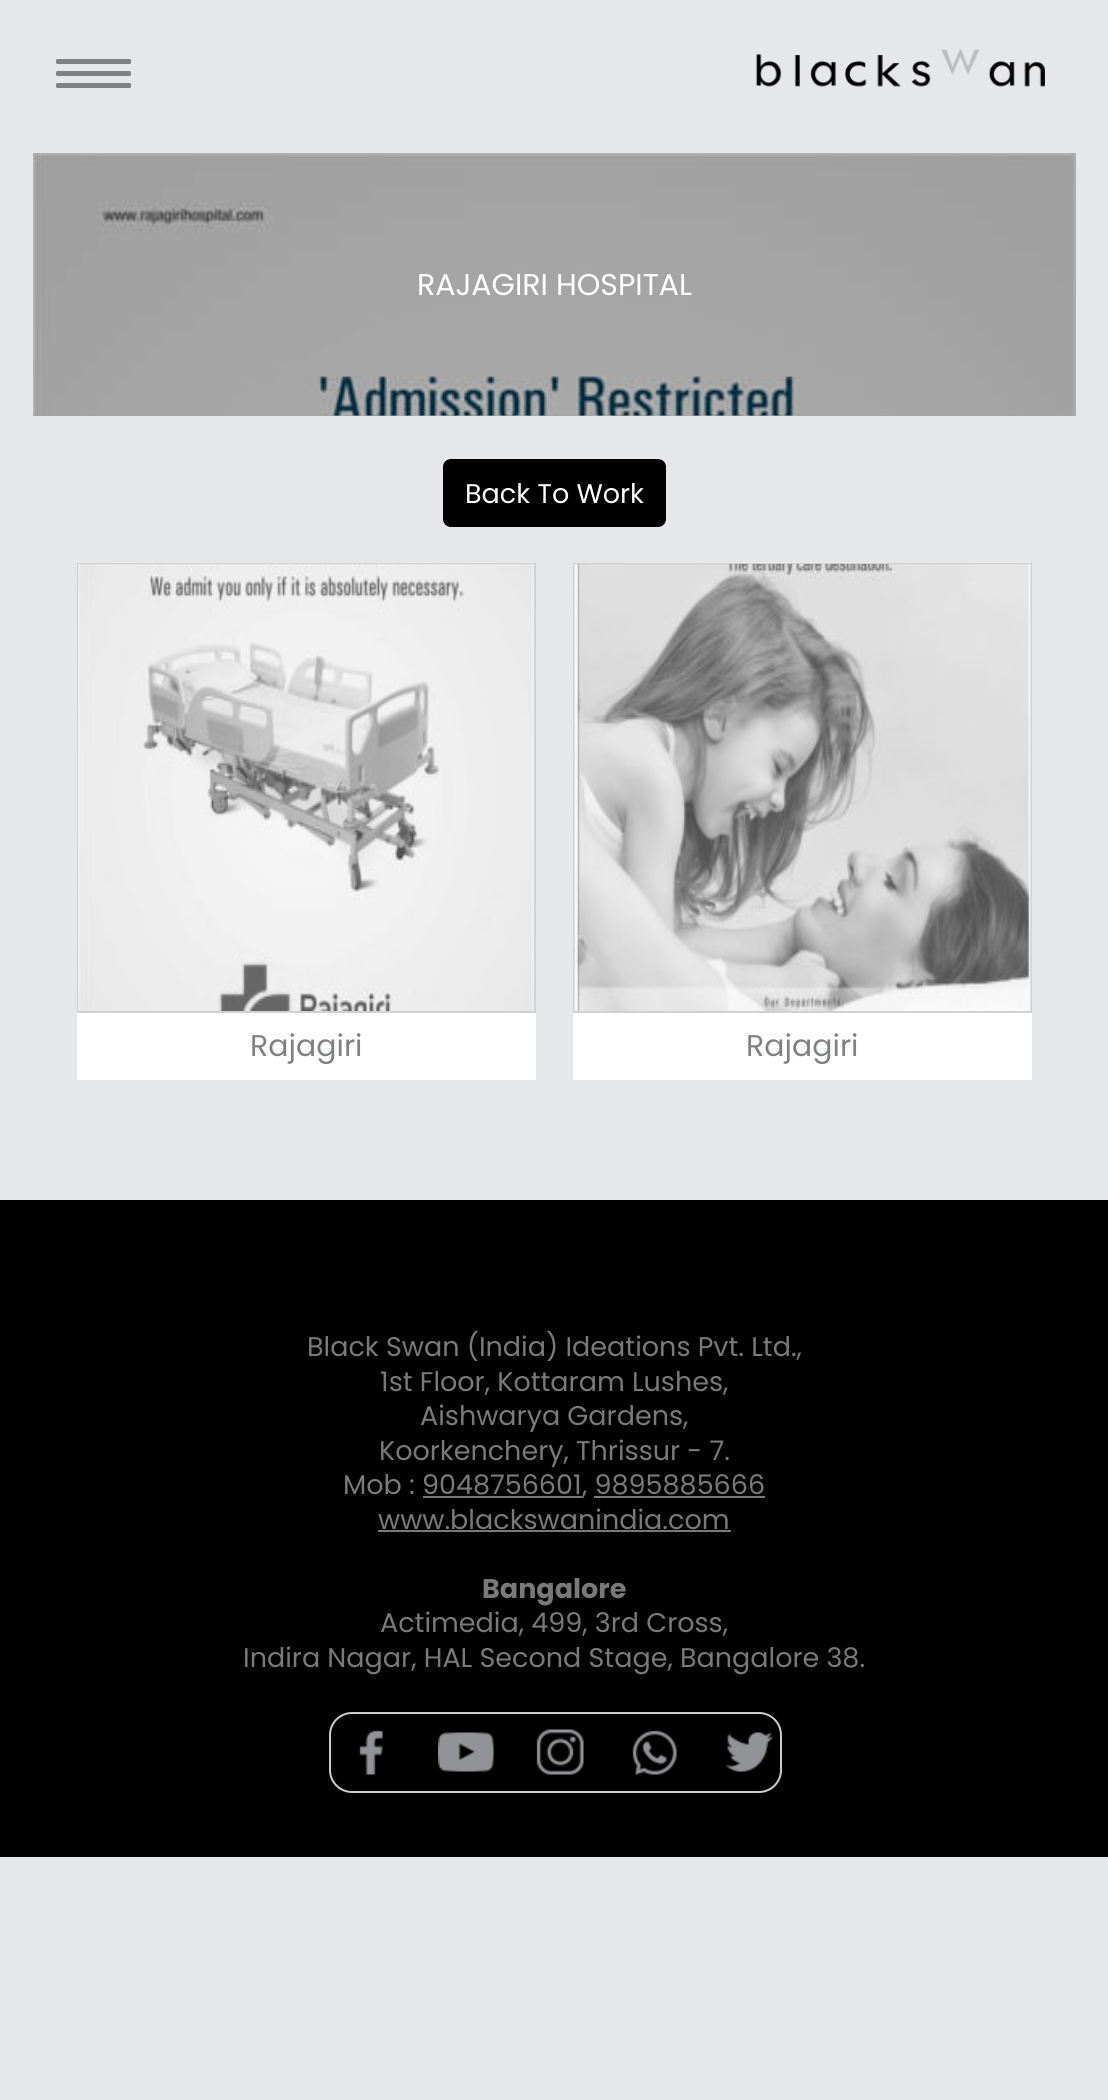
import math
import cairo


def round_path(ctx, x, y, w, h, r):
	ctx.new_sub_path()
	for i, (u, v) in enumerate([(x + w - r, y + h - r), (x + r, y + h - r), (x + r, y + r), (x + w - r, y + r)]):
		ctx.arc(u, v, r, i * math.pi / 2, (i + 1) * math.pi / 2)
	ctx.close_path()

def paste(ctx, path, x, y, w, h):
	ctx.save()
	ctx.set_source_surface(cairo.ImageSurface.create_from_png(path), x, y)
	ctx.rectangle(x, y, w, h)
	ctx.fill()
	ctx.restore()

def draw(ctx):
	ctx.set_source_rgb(0.902, 0.906, 0.914)
	ctx.paint()
	ctx.set_source_rgb(0.631, 0.635, 0.639)
	ctx.rectangle(33, 153, 1043, 263)
	ctx.fill()
	ctx.set_source_rgb(0.502, 0.506, 0.522)
	round_path(ctx, 56, 59, 75, 5, 1.5)
	ctx.fill()
	round_path(ctx, 56, 71, 75, 5, 1.5)
	ctx.fill()
	round_path(ctx, 56, 83, 75, 5, 1.5)
	ctx.fill()
	paste(ctx, 'media/1.png', 756, 49, 289, 38)
	paste(ctx, 'media/2.png', 33, 153, 1043, 263)
	ctx.select_font_face('Poppins')
	ctx.set_font_size(30)
	ctx.set_source_rgb(1, 1, 1)
	ctx.move_to(417, 295)
	ctx.show_text('RAJAGIRI HOSPITAL')
	ctx.set_source_rgb(0, 0, 0)
	round_path(ctx, 443, 459, 223, 68, 8)
	ctx.fill()
	ctx.set_font_size(27)
	ctx.set_source_rgb(1, 1, 1)
	ctx.move_to(465, 503)
	ctx.show_text('Back To Work')
	ctx.rectangle(78, 564, 457, 448)
	ctx.set_source_rgb(0.82, 0.82, 0.824)
	ctx.stroke()
	paste(ctx, 'media/3.png', 78, 564, 456, 447)
	ctx.set_source_rgb(1, 1, 1)
	ctx.rectangle(77, 1013, 459, 67)
	ctx.fill()
	ctx.set_font_size(30)
	ctx.set_source_rgb(0.502, 0.506, 0.522)
	ctx.move_to(250, 1056)
	ctx.show_text('Rajagiri')
	ctx.rectangle(574, 564, 457, 448)
	ctx.set_source_rgb(0.82, 0.82, 0.824)
	ctx.stroke()
	paste(ctx, 'media/4.png', 574, 564, 457, 447)
	ctx.set_source_rgb(1, 1, 1)
	ctx.rectangle(573, 1013, 459, 67)
	ctx.fill()
	ctx.set_source_rgb(0.502, 0.506, 0.522)
	ctx.move_to(746, 1056)
	ctx.show_text('Rajagiri')
	ctx.set_source_rgb(0, 0, 0)
	ctx.rectangle(0, 1200, 1108, 657)
	ctx.fill()
	ctx.set_font_size(27)
	ctx.set_source_rgb(0.475, 0.475, 0.475)
	for x, y, s in [
		(307, 1356, 'Black Swan (India) Ideations Pvt. Ltd.,'),
		(380, 1391, '1st Floor, Kottaram Lushes,'),
		(420, 1425, 'Aishwarya Gardens,'),
		(379, 1460, 'Koorkenchery, Thrissur - 7.'),
		(343, 1494, 'Mob : 9048756601'),
	]:
		ctx.move_to(x, y)
		ctx.show_text(s)
	ctx.rectangle(423, 1496, 159, 2)
	ctx.fill()
	ctx.move_to(582, 1494)
	ctx.show_text(', 9895885666')
	ctx.rectangle(594, 1496, 171, 2)
	ctx.fill()
	ctx.move_to(378, 1529)
	ctx.show_text('www.blackswanindia.com')
	ctx.rectangle(378, 1530, 353, 2)
	ctx.fill()
	ctx.select_font_face('Poppins', cairo.FONT_SLANT_NORMAL, cairo.FONT_WEIGHT_BOLD)
	ctx.move_to(482, 1598)
	ctx.show_text('Bangalore')
	ctx.select_font_face('Poppins')
	ctx.move_to(380, 1632)
	ctx.show_text('Actimedia, 499, 3rd Cross,')
	ctx.move_to(243, 1667)
	ctx.show_text('Indira Nagar, HAL Second Stage, Bangalore 38.')
	round_path(ctx, 330, 1713, 451, 79, 22)
	ctx.set_source_rgb(0.8, 0.8, 0.8)
	ctx.stroke()
	paste(ctx, 'media/5.png', 359, 1730, 24, 45)
	paste(ctx, 'media/6.png', 438, 1732, 56, 40)
	paste(ctx, 'media/7.png', 536, 1729, 48, 46)
	paste(ctx, 'media/8.png', 632, 1730, 45, 45)
	paste(ctx, 'media/9.png', 725, 1732, 48, 40)


surface = cairo.ImageSurface(cairo.FORMAT_RGB24, 1108, 2100)
ctx = cairo.Context(surface)
options = cairo.FontOptions()
options.set_hint_metrics(cairo.HINT_METRICS_OFF)
options.set_hint_style(cairo.HINT_STYLE_NONE)
ctx.set_font_options(options)
ctx.set_miter_limit(4)
draw(ctx)
surface.write_to_png('image.png')
